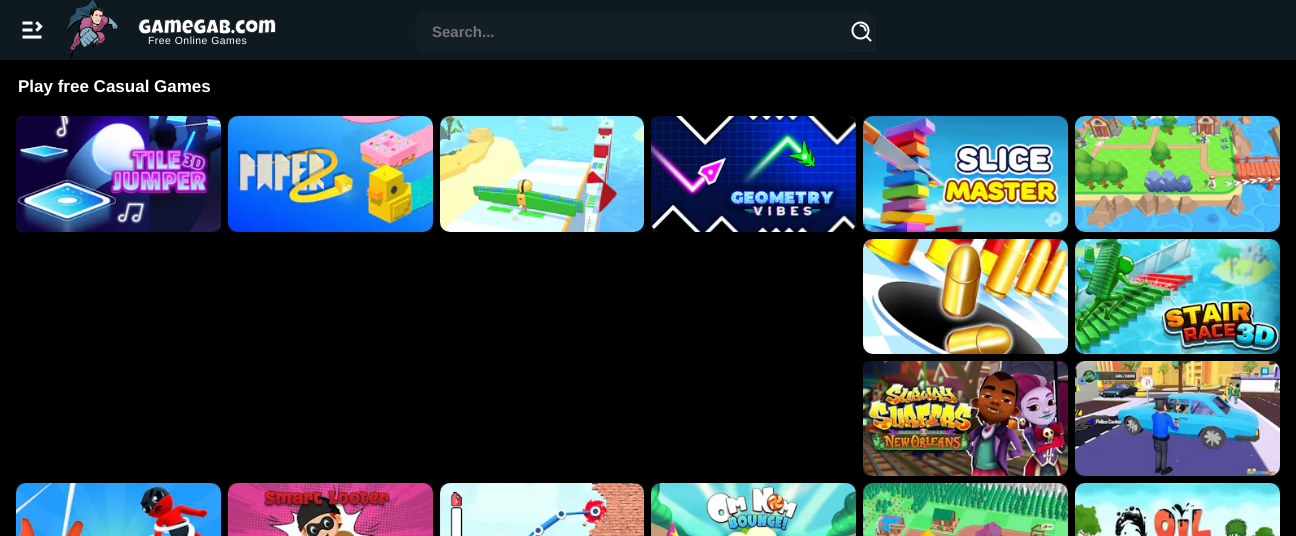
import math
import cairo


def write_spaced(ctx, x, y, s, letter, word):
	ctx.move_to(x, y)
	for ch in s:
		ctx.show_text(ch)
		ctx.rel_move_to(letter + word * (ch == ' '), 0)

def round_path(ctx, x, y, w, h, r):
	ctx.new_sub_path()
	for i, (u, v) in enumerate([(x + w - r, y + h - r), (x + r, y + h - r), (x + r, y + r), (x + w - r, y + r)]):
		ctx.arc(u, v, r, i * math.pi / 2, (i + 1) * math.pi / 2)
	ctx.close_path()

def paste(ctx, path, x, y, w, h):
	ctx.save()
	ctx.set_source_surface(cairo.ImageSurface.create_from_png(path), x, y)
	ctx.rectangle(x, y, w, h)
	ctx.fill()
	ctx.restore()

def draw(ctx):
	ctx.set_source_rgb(0, 0, 0)
	ctx.paint()
	ctx.set_source_rgb(0.059, 0.102, 0.125)
	ctx.rectangle(0, 0, 1296, 60)
	ctx.fill()
	ctx.set_source_rgb(0.075, 0.122, 0.145)
	round_path(ctx, 415, 13, 460, 38, 11)
	ctx.fill()
	ctx.select_font_face('Liberation Sans', cairo.FONT_SLANT_NORMAL, cairo.FONT_WEIGHT_BOLD)
	ctx.set_font_size(15)
	ctx.set_source_rgb(0.459, 0.459, 0.459)
	ctx.move_to(432, 37)
	ctx.show_text('Search...')
	ctx.set_source_rgb(0.075, 0.122, 0.145)
	ctx.rectangle(848, 18, 28, 34)
	ctx.fill()
	paste(ctx, 'media/1.png', 851, 21, 21, 21)
	paste(ctx, 'media/2.png', 22, 21, 21, 18)
	paste(ctx, 'media/3.png', 67, 0, 51, 58)
	paste(ctx, 'media/4.png', 138, 19, 138, 15)
	ctx.select_font_face('Liberation Sans')
	ctx.set_font_size(10.4)
	ctx.set_source_rgb(1, 1, 1)
	write_spaced(ctx, 148, 44, 'Free Online Games', 0.5, 0)
	ctx.select_font_face('Liberation Sans', cairo.FONT_SLANT_NORMAL, cairo.FONT_WEIGHT_BOLD)
	ctx.set_font_size(17)
	ctx.move_to(18, 92)
	ctx.show_text('Play free Casual Games')
	ctx.set_source_rgb(0.071, 0.071, 0.071)
	round_path(ctx, 16, 116, 205, 116, 6)
	ctx.fill()
	paste(ctx, 'media/5.png', 16, 116, 205, 116)
	round_path(ctx, 228, 116, 205, 116, 6)
	ctx.fill()
	paste(ctx, 'media/6.png', 228, 116, 205, 116)
	round_path(ctx, 440, 116, 204, 116, 6)
	ctx.fill()
	paste(ctx, 'media/7.png', 440, 116, 204, 116)
	round_path(ctx, 651, 116, 205, 116, 6)
	ctx.fill()
	paste(ctx, 'media/8.png', 651, 116, 205, 116)
	round_path(ctx, 863, 116, 205, 116, 6)
	ctx.fill()
	paste(ctx, 'media/9.png', 863, 116, 205, 116)
	round_path(ctx, 1075, 116, 205, 116, 6)
	ctx.fill()
	paste(ctx, 'media/10.png', 1075, 116, 205, 116)
	round_path(ctx, 863, 239, 205, 115, 6)
	ctx.fill()
	paste(ctx, 'media/11.png', 863, 239, 205, 115)
	round_path(ctx, 1075, 239, 205, 115, 6)
	ctx.fill()
	paste(ctx, 'media/12.png', 1075, 239, 205, 115)
	round_path(ctx, 863, 361, 205, 115, 6)
	ctx.fill()
	paste(ctx, 'media/13.png', 863, 361, 205, 115)
	round_path(ctx, 1075, 361, 205, 115, 6)
	ctx.fill()
	paste(ctx, 'media/14.png', 1075, 361, 205, 115)
	round_path(ctx, 16, 483, 205, 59, 6)
	ctx.fill()
	paste(ctx, 'media/15.png', 16, 483, 205, 53)
	round_path(ctx, 228, 483, 205, 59, 6)
	ctx.fill()
	paste(ctx, 'media/16.png', 228, 483, 205, 53)
	round_path(ctx, 440, 483, 204, 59, 6)
	ctx.fill()
	paste(ctx, 'media/17.png', 440, 483, 204, 53)
	round_path(ctx, 651, 483, 205, 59, 6)
	ctx.fill()
	paste(ctx, 'media/18.png', 651, 483, 205, 53)
	round_path(ctx, 863, 483, 205, 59, 6)
	ctx.fill()
	paste(ctx, 'media/19.png', 863, 483, 205, 53)
	round_path(ctx, 1075, 483, 205, 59, 6)
	ctx.fill()
	paste(ctx, 'media/20.png', 1075, 483, 205, 53)


surface = cairo.ImageSurface(cairo.FORMAT_RGB24, 1296, 536)
ctx = cairo.Context(surface)
options = cairo.FontOptions()
options.set_hint_metrics(cairo.HINT_METRICS_OFF)
options.set_hint_style(cairo.HINT_STYLE_NONE)
ctx.set_font_options(options)
ctx.set_miter_limit(4)
draw(ctx)
surface.write_to_png('image.png')
